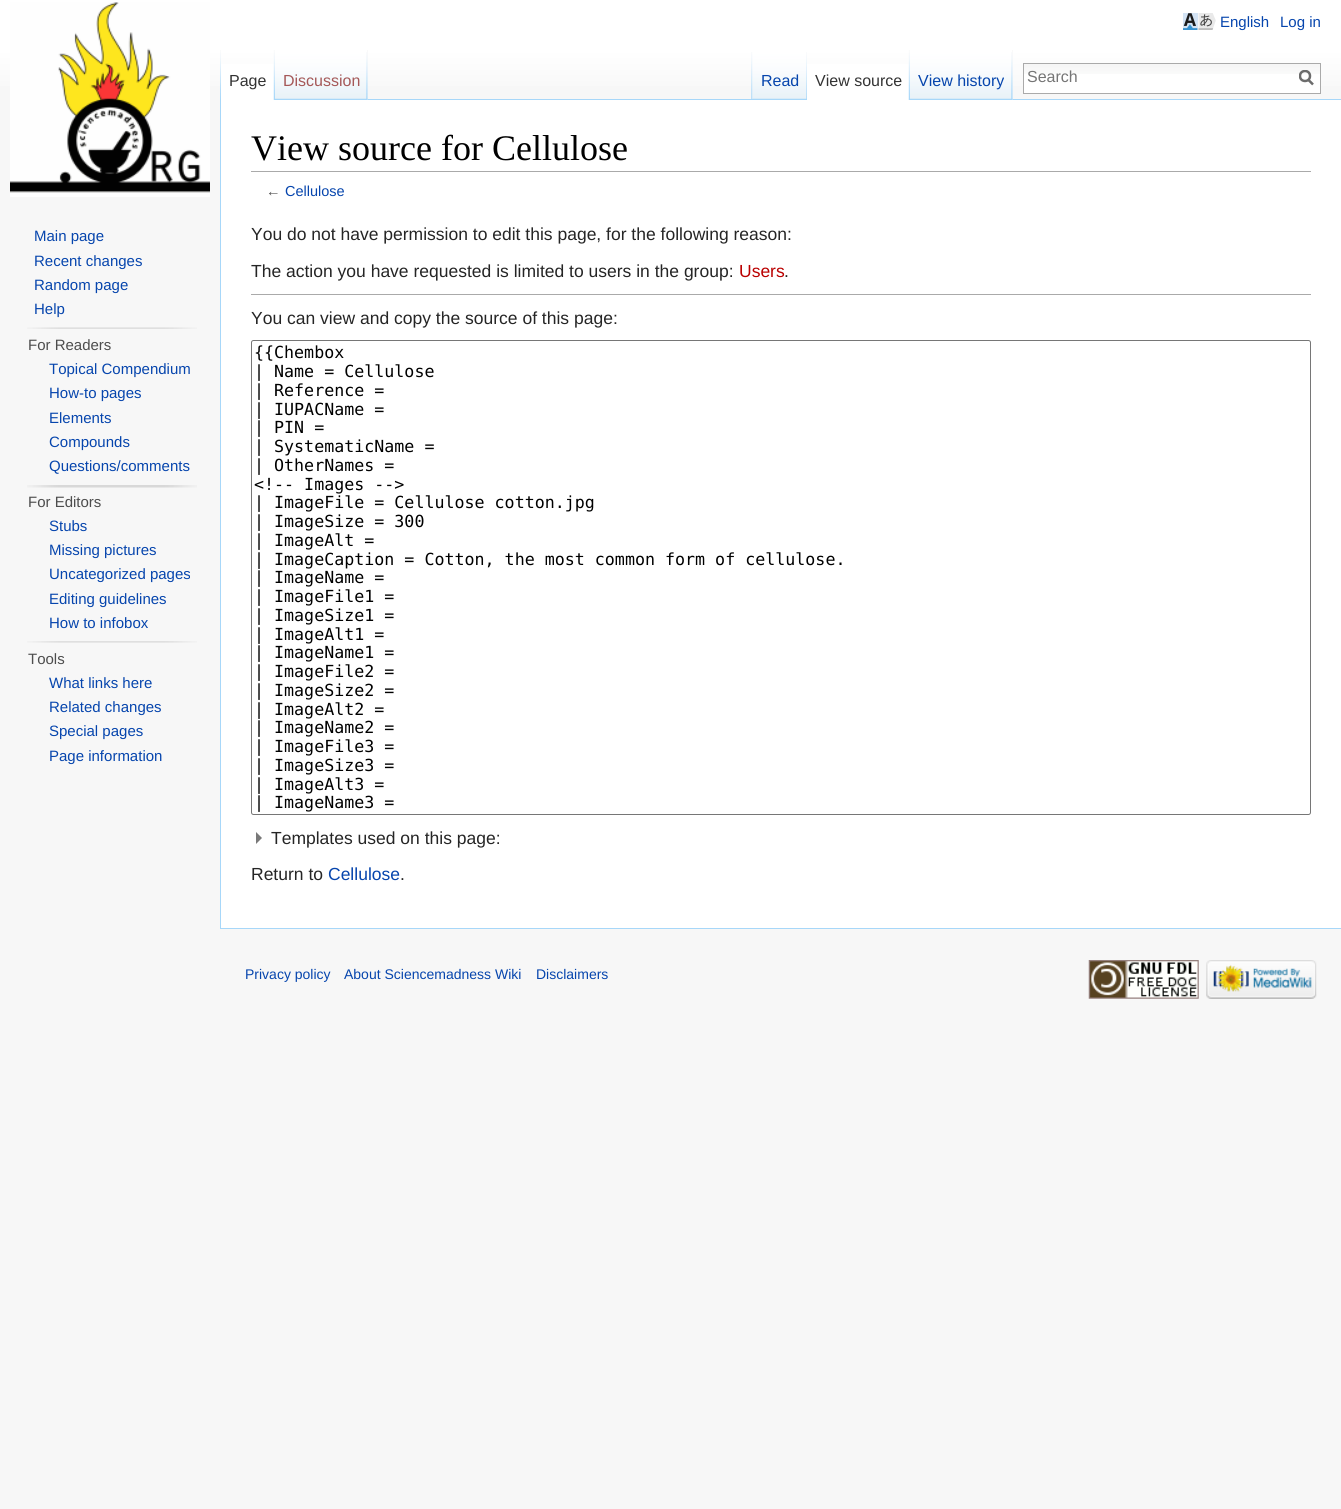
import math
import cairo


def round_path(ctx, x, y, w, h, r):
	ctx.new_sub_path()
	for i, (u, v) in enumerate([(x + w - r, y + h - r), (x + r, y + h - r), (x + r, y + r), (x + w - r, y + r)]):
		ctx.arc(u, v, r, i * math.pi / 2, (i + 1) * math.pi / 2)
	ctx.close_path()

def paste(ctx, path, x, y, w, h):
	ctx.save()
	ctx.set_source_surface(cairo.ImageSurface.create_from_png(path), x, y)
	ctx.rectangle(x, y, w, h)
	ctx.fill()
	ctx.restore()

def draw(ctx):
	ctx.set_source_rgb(0.965, 0.965, 0.965)
	ctx.paint()
	gradient = cairo.LinearGradient(671, 0, 671, 100)
	gradient.add_color_stop_rgba(0.5, 1, 1, 1, 1)
	gradient.add_color_stop_rgba(1, 0.965, 0.965, 0.965, 1)
	ctx.set_source(gradient)
	ctx.rectangle(0, 0, 1341, 86)
	ctx.fill()
	paste(ctx, 'media/1.png', 1183, 13, 33, 17)
	ctx.select_font_face('Liberation Sans')
	ctx.set_font_size(15)
	ctx.set_source_rgb(0.024, 0.271, 0.678)
	ctx.move_to(1220, 27)
	ctx.show_text('English')
	ctx.move_to(1280, 27)
	ctx.show_text('Log in')
	paste(ctx, 'media/2.png', 220, 50, 1, 49)
	ctx.set_source_rgb(1, 1, 1)
	ctx.rectangle(221, 64, 53, 36)
	ctx.fill()
	paste(ctx, 'media/3.png', 273, 50, 2, 50)
	ctx.set_font_size(16)
	ctx.set_source_rgb(0.2, 0.2, 0.2)
	ctx.move_to(229, 86)
	ctx.show_text('Page')
	ctx.set_source_rgb(0.953, 0.953, 0.953)
	ctx.rectangle(367, 50, 1, 50)
	ctx.fill()
	paste(ctx, 'media/4.png', 275, 50, 93, 50)
	paste(ctx, 'media/5.png', 366, 52, 2, 48)
	ctx.set_source_rgb(0.647, 0.345, 0.345)
	ctx.move_to(283, 86)
	ctx.show_text('Discussion')
	paste(ctx, 'media/6.png', 751, 52, 2, 47)
	ctx.set_source_rgb(0.655, 0.843, 0.976)
	ctx.rectangle(368, 99, 973, 1)
	ctx.fill()
	paste(ctx, 'media/7.png', 752, 50, 55, 50)
	paste(ctx, 'media/8.png', 806, 52, 1, 48)
	ctx.set_source_rgb(0.024, 0.271, 0.678)
	ctx.move_to(761, 86)
	ctx.show_text('Read')
	ctx.set_source_rgb(1, 1, 1)
	ctx.rectangle(807, 64, 102, 36)
	ctx.fill()
	paste(ctx, 'media/3.png', 908, 50, 2, 50)
	ctx.set_source_rgb(0.2, 0.2, 0.2)
	ctx.move_to(815, 86)
	ctx.show_text('View source')
	ctx.set_source_rgb(0.953, 0.953, 0.953)
	ctx.rectangle(1012, 50, 1, 50)
	ctx.fill()
	paste(ctx, 'media/9.png', 910, 50, 103, 50)
	paste(ctx, 'media/5.png', 1011, 52, 2, 48)
	ctx.set_source_rgb(0.024, 0.271, 0.678)
	ctx.move_to(918, 86)
	ctx.show_text('View history')
	ctx.set_source_rgb(1, 1, 1)
	ctx.rectangle(1024, 74, 296, 19)
	ctx.fill()
	paste(ctx, 'media/10.png', 1024, 64, 296, 10)
	ctx.rectangle(1023.5, 63.5, 297, 30)
	ctx.set_source_rgb(0.667, 0.667, 0.667)
	ctx.set_line_width(1)
	ctx.stroke()
	ctx.set_source_rgb(0.459, 0.459, 0.459)
	ctx.move_to(1027, 82)
	ctx.show_text('Search')
	ctx.new_path()
	ctx.move_to(1313, 84.5)
	ctx.line_to(1308, 79.5)
	ctx.set_source_rgb(0.424, 0.424, 0.424)
	ctx.set_line_width(2.5)
	ctx.stroke()
	ctx.save()
	ctx.rectangle(1299, 70, 15, 16)
	ctx.clip()
	ctx.arc(1305, 76, 5, 0, 2 * math.pi)
	ctx.stroke()
	ctx.restore()
	paste(ctx, 'media/11.png', 10, 2, 200, 195)
	ctx.set_font_size(15)
	ctx.set_source_rgb(0.024, 0.271, 0.678)
	for x, y, s in [
		(34, 241, 'Main page'),
		(34, 266, 'Recent changes'),
		(34, 290, 'Random page'),
		(34, 314, 'Help'),
	]:
		ctx.move_to(x, y)
		ctx.show_text(s)
	paste(ctx, 'media/12.png', 27, 327, 170, 2)
	ctx.set_source_rgb(0.302, 0.302, 0.302)
	ctx.move_to(28, 350)
	ctx.show_text('For Readers')
	ctx.set_source_rgb(0.024, 0.271, 0.678)
	for x, y, s in [
		(49, 374, 'Topical Compendium'),
		(49, 398, 'How-to pages'),
		(49, 423, 'Elements'),
		(49, 447, 'Compounds'),
		(49, 471, 'Questions/comments'),
	]:
		ctx.move_to(x, y)
		ctx.show_text(s)
	paste(ctx, 'media/13.png', 27, 485, 170, 3)
	ctx.set_source_rgb(0.302, 0.302, 0.302)
	ctx.move_to(28, 507)
	ctx.show_text('For Editors')
	ctx.set_source_rgb(0.024, 0.271, 0.678)
	for x, y, s in [
		(49, 531, 'Stubs'),
		(49, 555, 'Missing pictures'),
		(49, 579, 'Uncategorized pages'),
		(49, 604, 'Editing guidelines'),
		(49, 628, 'How to infobox'),
	]:
		ctx.move_to(x, y)
		ctx.show_text(s)
	paste(ctx, 'media/14.png', 27, 641, 170, 2)
	ctx.set_source_rgb(0.302, 0.302, 0.302)
	ctx.move_to(28, 664)
	ctx.show_text('Tools')
	ctx.set_source_rgb(0.024, 0.271, 0.678)
	for x, y, s in [
		(49, 688, 'What links here'),
		(49, 712, 'Related changes'),
		(49, 736, 'Special pages'),
		(49, 761, 'Page information'),
	]:
		ctx.move_to(x, y)
		ctx.show_text(s)
	ctx.set_source_rgb(1, 1, 1)
	ctx.rectangle(221, 100, 1120, 828)
	ctx.fill()
	ctx.set_source_rgb(0.655, 0.843, 0.976)
	ctx.rectangle(220, 928, 1121, 1)
	ctx.rectangle(220, 99, 1, 830)
	ctx.fill()
	ctx.set_source_rgb(0.667, 0.667, 0.667)
	ctx.rectangle(251, 171, 1060, 1)
	ctx.fill()
	ctx.select_font_face('Liberation Serif')
	ctx.set_font_size(36)
	ctx.set_source_rgb(0, 0, 0)
	ctx.move_to(251, 160)
	ctx.show_text('View source for Cellulose')
	ctx.select_font_face('Liberation Sans')
	ctx.set_font_size(14.5)
	ctx.set_source_rgb(0.329, 0.329, 0.329)
	ctx.move_to(266, 196)
	ctx.show_text('←')
	ctx.set_source_rgb(0.024, 0.271, 0.678)
	ctx.move_to(285, 196)
	ctx.show_text('Cellulose')
	ctx.set_font_size(17.5)
	ctx.set_source_rgb(0.145, 0.145, 0.145)
	ctx.move_to(251, 240)
	ctx.show_text('You do not have permission to edit this page, for the following reason:')
	ctx.move_to(251, 277)
	ctx.show_text('The action you have requested is limited to users in the group:')
	ctx.set_source_rgb(0.729, 0, 0)
	ctx.move_to(739, 277)
	ctx.show_text('Users')
	ctx.set_source_rgb(0.145, 0.145, 0.145)
	ctx.move_to(784, 277)
	ctx.show_text('.')
	ctx.set_source_rgb(0.667, 0.667, 0.667)
	ctx.rectangle(251, 294, 1060, 1)
	ctx.fill()
	ctx.set_source_rgb(0.145, 0.145, 0.145)
	ctx.move_to(251, 324)
	ctx.show_text('You can view and copy the source of this page:')
	round_path(ctx, 251.5, 340.5, 1059, 474, 2)
	ctx.set_source_rgb(0.463, 0.463, 0.463)
	ctx.set_line_width(1)
	ctx.stroke()
	ctx.select_font_face('DejaVu Sans Mono')
	ctx.set_font_size(16.65)
	ctx.set_source_rgb(0, 0, 0)
	for x, y, s in [
		(254, 358, '{{Chembox'),
		(254, 377, '| Name = Cellulose'),
		(254, 396, '| Reference ='),
		(254, 415, '| IUPACName ='),
		(254, 433, '| PIN ='),
		(254, 452, '| SystematicName ='),
		(254, 471, '| OtherNames ='),
		(254, 490, '<!-- Images -->'),
		(254, 508, '| ImageFile = Cellulose cotton.jpg'),
		(254, 527, '| ImageSize = 300'),
		(254, 546, '| ImageAlt ='),
		(254, 565, '| ImageCaption = Cotton, the most common form of cellulose.'),
		(254, 583, '| ImageName ='),
		(254, 602, '| ImageFile1 ='),
		(254, 621, '| ImageSize1 ='),
		(254, 640, '| ImageAlt1 ='),
		(254, 658, '| ImageName1 ='),
		(254, 677, '| ImageFile2 ='),
		(254, 696, '| ImageSize2 ='),
		(254, 715, '| ImageAlt2 ='),
		(254, 733, '| ImageName2 ='),
		(254, 752, '| ImageFile3 ='),
		(254, 771, '| ImageSize3 ='),
		(254, 790, '| ImageAlt3 ='),
		(254, 808, '| ImageName3 ='),
	]:
		ctx.move_to(x, y)
		ctx.show_text(s)
	ctx.set_source_rgb(0.475, 0.475, 0.475)
	ctx.new_path()
	ctx.move_to(256, 832)
	ctx.line_to(256, 844)
	ctx.line_to(262, 838)
	ctx.close_path()
	ctx.fill()
	ctx.select_font_face('Liberation Sans')
	ctx.set_font_size(17.5)
	ctx.set_source_rgb(0.145, 0.145, 0.145)
	ctx.move_to(271, 844)
	ctx.show_text('Templates used on this page:')
	ctx.move_to(251, 880)
	ctx.show_text('Return to')
	ctx.set_source_rgb(0.024, 0.271, 0.678)
	ctx.move_to(328, 880)
	ctx.show_text('Cellulose')
	ctx.set_source_rgb(0.145, 0.145, 0.145)
	ctx.move_to(400, 880)
	ctx.show_text('.')
	ctx.set_font_size(14)
	ctx.set_source_rgb(0.024, 0.271, 0.678)
	for x, y, s in [
		(245, 979, 'Privacy policy'),
		(344, 979, 'About Sciencemadness Wiki'),
		(536, 979, 'Disclaimers'),
	]:
		ctx.move_to(x, y)
		ctx.show_text(s)
	paste(ctx, 'media/15.png', 1088, 960, 111, 39)
	paste(ctx, 'media/16.png', 1206, 960, 111, 39)


surface = cairo.ImageSurface(cairo.FORMAT_RGB24, 1341, 1509)
ctx = cairo.Context(surface)
options = cairo.FontOptions()
options.set_hint_metrics(cairo.HINT_METRICS_OFF)
options.set_hint_style(cairo.HINT_STYLE_NONE)
ctx.set_font_options(options)
ctx.set_miter_limit(4)
draw(ctx)
surface.write_to_png('image.png')
